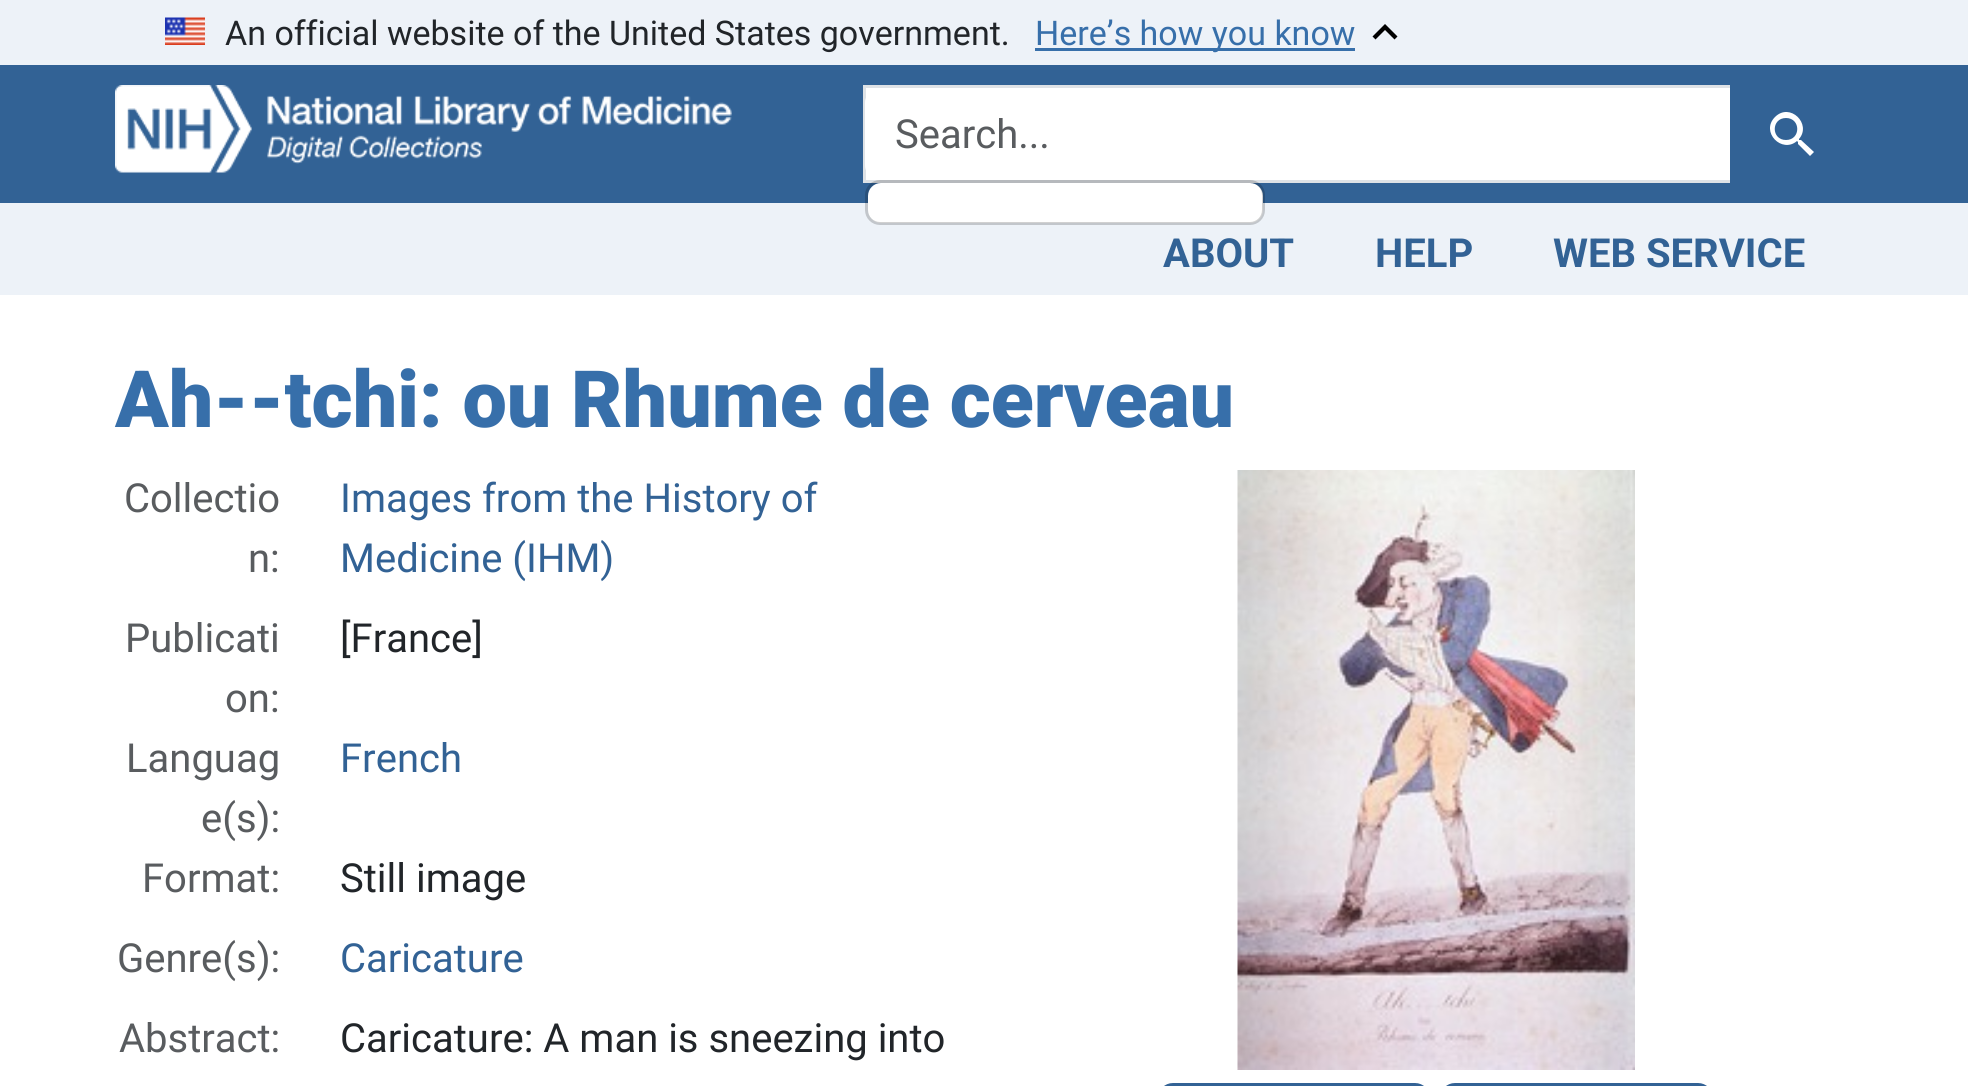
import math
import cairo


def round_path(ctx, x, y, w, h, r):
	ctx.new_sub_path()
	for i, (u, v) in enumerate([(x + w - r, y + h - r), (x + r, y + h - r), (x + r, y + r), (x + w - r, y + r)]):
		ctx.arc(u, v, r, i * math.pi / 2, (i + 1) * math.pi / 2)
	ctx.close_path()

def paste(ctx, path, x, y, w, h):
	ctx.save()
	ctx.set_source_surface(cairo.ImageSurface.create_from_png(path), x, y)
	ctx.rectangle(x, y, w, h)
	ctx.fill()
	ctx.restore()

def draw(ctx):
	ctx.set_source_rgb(1, 1, 1)
	ctx.paint()
	ctx.set_source_rgb(0.929, 0.949, 0.969)
	ctx.rectangle(0, 0, 1968, 65)
	ctx.fill()
	paste(ctx, 'media/1.png', 165, 17, 40, 28)
	ctx.select_font_face('Roboto')
	ctx.set_font_size(34)
	ctx.set_source_rgb(0.129, 0.145, 0.161)
	ctx.move_to(225, 45)
	ctx.show_text('An official website of the United States government.')
	ctx.set_source_rgb(0.216, 0.435, 0.667)
	ctx.rectangle(1035, 48, 320, 3)
	ctx.fill()
	ctx.move_to(1035, 45)
	ctx.show_text('Here’s how you know')
	ctx.set_source_rgb(0, 0, 0)
	ctx.new_path()
	ctx.move_to(1385, 24)
	ctx.line_to(1372.5, 36.5)
	ctx.line_to(1375.5, 39.5)
	ctx.line_to(1385, 30)
	ctx.line_to(1394.5, 39.5)
	ctx.line_to(1397.5, 36.5)
	ctx.close_path()
	ctx.fill()
	ctx.set_source_rgb(0.196, 0.384, 0.584)
	ctx.rectangle(0, 65, 1968, 138)
	ctx.fill()
	paste(ctx, 'media/2.png', 115, 85, 617, 88)
	ctx.set_source_rgb(1, 1, 1)
	ctx.rectangle(864.5, 86.5, 867, 95)
	ctx.fill_preserve()
	ctx.set_source_rgb(0.871, 0.886, 0.902)
	ctx.set_line_width(3)
	ctx.stroke()
	ctx.set_source_rgb(1, 1, 1)
	round_path(ctx, 865, 88, 865, 92, 15)
	ctx.fill()
	ctx.set_font_size(40)
	ctx.set_source_rgb(0.349, 0.361, 0.373)
	ctx.move_to(895, 148)
	ctx.show_text('Search...')
	ctx.set_source_rgb(0.929, 0.949, 0.969)
	ctx.rectangle(0, 203, 1968, 92)
	ctx.fill()
	ctx.set_source_rgb(1, 1, 1)
	round_path(ctx, 868, 183, 395, 40, 13)
	ctx.fill()
	round_path(ctx, 866.5, 181.5, 397, 42, 13.5)
	ctx.set_source_rgba(0, 0, 0, 0.18)
	ctx.stroke()
	ctx.set_source_rgb(0.196, 0.384, 0.584)
	ctx.new_path()
	ctx.move_to(1730, 85)
	ctx.line_to(1840, 85)
	ctx.curve_to(1848.5, 85, 1855, 91.5, 1855, 100)
	ctx.line_to(1855, 168)
	ctx.curve_to(1855, 176.5, 1848.5, 183, 1840, 183)
	ctx.line_to(1730, 183)
	ctx.close_path()
	ctx.fill()
	ctx.set_source_rgb(1, 1, 1)
	ctx.new_path()
	ctx.move_to(1801, 140)
	ctx.line_to(1799, 140)
	ctx.line_to(1799, 139)
	ctx.curve_to(1812, 124, 1790, 102, 1775, 117)
	ctx.curve_to(1760, 132, 1782, 154, 1797, 141)
	ctx.line_to(1798, 142)
	ctx.line_to(1798, 144)
	ctx.line_to(1810, 156)
	ctx.line_to(1814, 152)
	ctx.close_path()
	ctx.move_to(1786, 140)
	ctx.curve_to(1771, 140, 1771, 118, 1786, 118)
	ctx.curve_to(1801, 118, 1801, 140, 1786, 140)
	ctx.close_path()
	ctx.fill()
	ctx.select_font_face('Roboto', cairo.FONT_SLANT_NORMAL, cairo.FONT_WEIGHT_BOLD)
	ctx.set_source_rgb(0.196, 0.384, 0.584)
	for x, y, s in [
		(1163, 267, 'ABOUT'),
		(1375, 267, 'HELP'),
		(1553, 267, 'WEB SERVICE'),
	]:
		ctx.move_to(x, y)
		ctx.show_text(s)
	ctx.select_font_face('Roboto Black')
	ctx.set_font_size(79)
	ctx.set_source_rgb(0.216, 0.435, 0.667)
	ctx.move_to(115, 427)
	ctx.show_text('Ah--tchi: ou Rhume de cerveau')
	ctx.select_font_face('Roboto')
	ctx.set_font_size(40)
	ctx.set_source_rgb(0.349, 0.361, 0.373)
	ctx.move_to(124, 512)
	ctx.show_text('Collectio')
	ctx.move_to(248, 572)
	ctx.show_text('n:')
	ctx.set_source_rgb(0.196, 0.384, 0.584)
	ctx.move_to(340, 512)
	ctx.show_text('Images from the History of')
	ctx.move_to(340, 572)
	ctx.show_text('Medicine (IHM)')
	ctx.set_source_rgb(0.349, 0.361, 0.373)
	ctx.move_to(125, 652)
	ctx.show_text('Publicati')
	ctx.move_to(225, 712)
	ctx.show_text('on:')
	ctx.set_source_rgb(0.129, 0.145, 0.161)
	ctx.move_to(340, 652)
	ctx.show_text('[France]')
	ctx.set_source_rgb(0.349, 0.361, 0.373)
	ctx.move_to(126, 772)
	ctx.show_text('Languag')
	ctx.move_to(201, 832)
	ctx.show_text('e(s):')
	ctx.set_source_rgb(0.196, 0.384, 0.584)
	ctx.move_to(340, 772)
	ctx.show_text('French')
	ctx.set_source_rgb(0.349, 0.361, 0.373)
	ctx.move_to(142, 892)
	ctx.show_text('Format:')
	ctx.set_source_rgb(0.129, 0.145, 0.161)
	ctx.move_to(340, 892)
	ctx.show_text('Still image')
	ctx.set_source_rgb(0.349, 0.361, 0.373)
	ctx.move_to(117, 972)
	ctx.show_text('Genre(s):')
	ctx.set_source_rgb(0.196, 0.384, 0.584)
	ctx.move_to(340, 972)
	ctx.show_text('Caricature')
	ctx.set_source_rgb(0.349, 0.361, 0.373)
	ctx.move_to(119, 1052)
	ctx.show_text('Abstract:')
	ctx.set_source_rgb(0.129, 0.145, 0.161)
	ctx.move_to(340, 1052)
	ctx.show_text('Caricature: A man is sneezing into')
	paste(ctx, 'media/3.png', 1237, 470, 398, 600)
	round_path(ctx, 1159.5, 1084.5, 269, 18, 13.5)
	ctx.set_source_rgb(0.196, 0.384, 0.584)
	ctx.stroke()
	round_path(ctx, 1441.5, 1084.5, 270, 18, 13.5)
	ctx.stroke()


surface = cairo.ImageSurface(cairo.FORMAT_RGB24, 1968, 1086)
ctx = cairo.Context(surface)
options = cairo.FontOptions()
options.set_hint_metrics(cairo.HINT_METRICS_OFF)
options.set_hint_style(cairo.HINT_STYLE_NONE)
ctx.set_font_options(options)
ctx.set_miter_limit(4)
draw(ctx)
surface.write_to_png('image.png')
